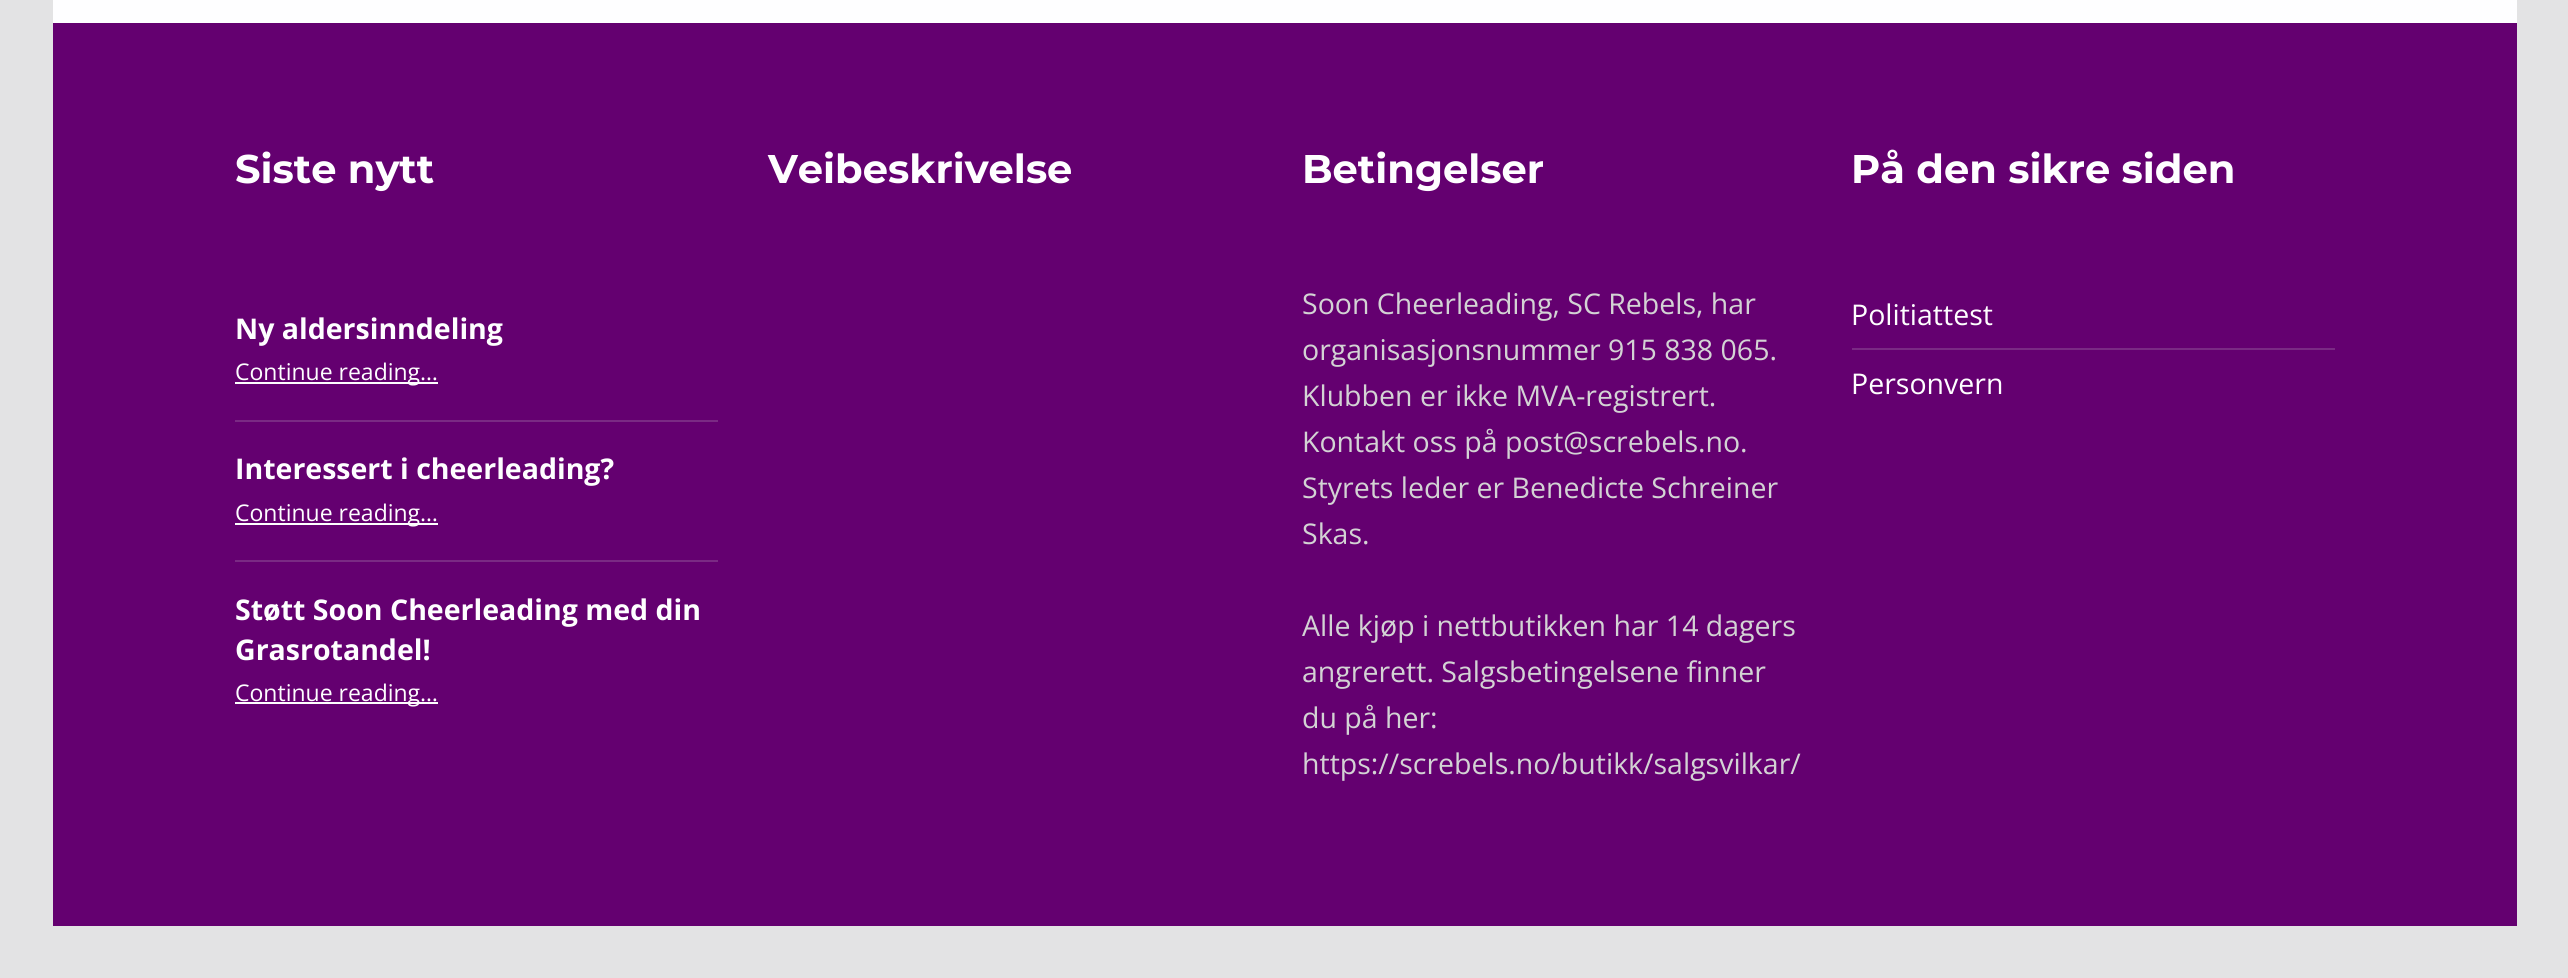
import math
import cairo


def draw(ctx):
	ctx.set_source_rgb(0.89, 0.89, 0.894)
	ctx.paint()
	ctx.set_source_rgb(0.996, 0.996, 1)
	ctx.rectangle(53, 0, 2464, 23)
	ctx.fill()
	ctx.set_source_rgb(0.392, 0, 0.439)
	ctx.rectangle(53, 23, 2464, 903)
	ctx.fill()
	ctx.select_font_face('Montserrat', cairo.FONT_SLANT_NORMAL, cairo.FONT_WEIGHT_BOLD)
	ctx.set_font_size(40)
	ctx.set_source_rgb(0.996, 0.996, 1)
	ctx.move_to(235, 183)
	ctx.show_text('Siste nytt')
	ctx.select_font_face('Open Sans', cairo.FONT_SLANT_NORMAL, cairo.FONT_WEIGHT_BOLD)
	ctx.set_font_size(28.5)
	ctx.move_to(235, 339)
	ctx.show_text('Ny aldersinndeling')
	ctx.rectangle(235, 382, 203, 2)
	ctx.fill()
	ctx.select_font_face('Open Sans')
	ctx.set_font_size(23)
	ctx.move_to(235, 380)
	ctx.show_text('Continue reading…')
	ctx.set_source_rgb(0.478, 0.165, 0.518)
	ctx.rectangle(235, 420, 483, 2)
	ctx.fill()
	ctx.select_font_face('Open Sans', cairo.FONT_SLANT_NORMAL, cairo.FONT_WEIGHT_BOLD)
	ctx.set_font_size(28.5)
	ctx.set_source_rgb(0.996, 0.996, 1)
	ctx.move_to(235, 479)
	ctx.show_text('Interessert i cheerleading?')
	ctx.rectangle(235, 523, 203, 2)
	ctx.fill()
	ctx.select_font_face('Open Sans')
	ctx.set_font_size(23)
	ctx.move_to(235, 521)
	ctx.show_text('Continue reading…')
	ctx.set_source_rgb(0.478, 0.165, 0.518)
	ctx.rectangle(235, 560, 483, 2)
	ctx.fill()
	ctx.select_font_face('Open Sans', cairo.FONT_SLANT_NORMAL, cairo.FONT_WEIGHT_BOLD)
	ctx.set_font_size(28.5)
	ctx.set_source_rgb(0.996, 0.996, 1)
	ctx.move_to(235, 620)
	ctx.show_text('Støtt Soon Cheerleading med din')
	ctx.move_to(235, 660)
	ctx.show_text('Grasrotandel!')
	ctx.rectangle(235, 702, 203, 2)
	ctx.fill()
	ctx.select_font_face('Open Sans')
	ctx.set_font_size(23)
	ctx.move_to(235, 701)
	ctx.show_text('Continue reading…')
	ctx.select_font_face('Montserrat', cairo.FONT_SLANT_NORMAL, cairo.FONT_WEIGHT_BOLD)
	ctx.set_font_size(40)
	ctx.move_to(768, 183)
	ctx.show_text('Veibeskrivelse')
	ctx.move_to(1302, 183)
	ctx.show_text('Betingelser')
	ctx.select_font_face('Open Sans')
	ctx.set_font_size(28.5)
	ctx.set_source_rgb(0.827, 0.827, 0.831)
	for x, y, s in [
		(1302, 314, 'Soon Cheerleading, SC Rebels, har'),
		(1302, 360, 'organisasjonsnummer 915 838 065.'),
		(1302, 406, 'Klubben er ikke MVA-registrert.'),
		(1302, 452, 'Kontakt oss på post@screbels.no.'),
		(1302, 498, 'Styrets leder er Benedicte Schreiner'),
		(1302, 544, 'Skas.'),
		(1302, 636, 'Alle kjøp i nettbutikken har 14 dagers'),
		(1302, 682, 'angrerett. Salgsbetingelsene finner'),
		(1302, 728, 'du på her:'),
		(1302, 774, 'https://screbels.no/butikk/salgsvilkar/'),
	]:
		ctx.move_to(x, y)
		ctx.show_text(s)
	ctx.select_font_face('Montserrat', cairo.FONT_SLANT_NORMAL, cairo.FONT_WEIGHT_BOLD)
	ctx.set_font_size(40)
	ctx.set_source_rgb(0.996, 0.996, 1)
	ctx.move_to(1851, 183)
	ctx.show_text('På den sikre siden')
	ctx.select_font_face('Open Sans')
	ctx.set_font_size(28.5)
	ctx.move_to(1851, 325)
	ctx.show_text('Politiattest')
	ctx.set_source_rgb(0.478, 0.165, 0.518)
	ctx.rectangle(1852, 348, 483, 2)
	ctx.fill()
	ctx.set_source_rgb(0.996, 0.996, 1)
	ctx.move_to(1851, 394)
	ctx.show_text('Personvern')


surface = cairo.ImageSurface(cairo.FORMAT_RGB24, 2568, 978)
ctx = cairo.Context(surface)
options = cairo.FontOptions()
options.set_hint_metrics(cairo.HINT_METRICS_OFF)
options.set_hint_style(cairo.HINT_STYLE_NONE)
ctx.set_font_options(options)
ctx.set_miter_limit(4)
draw(ctx)
surface.write_to_png('image.png')
